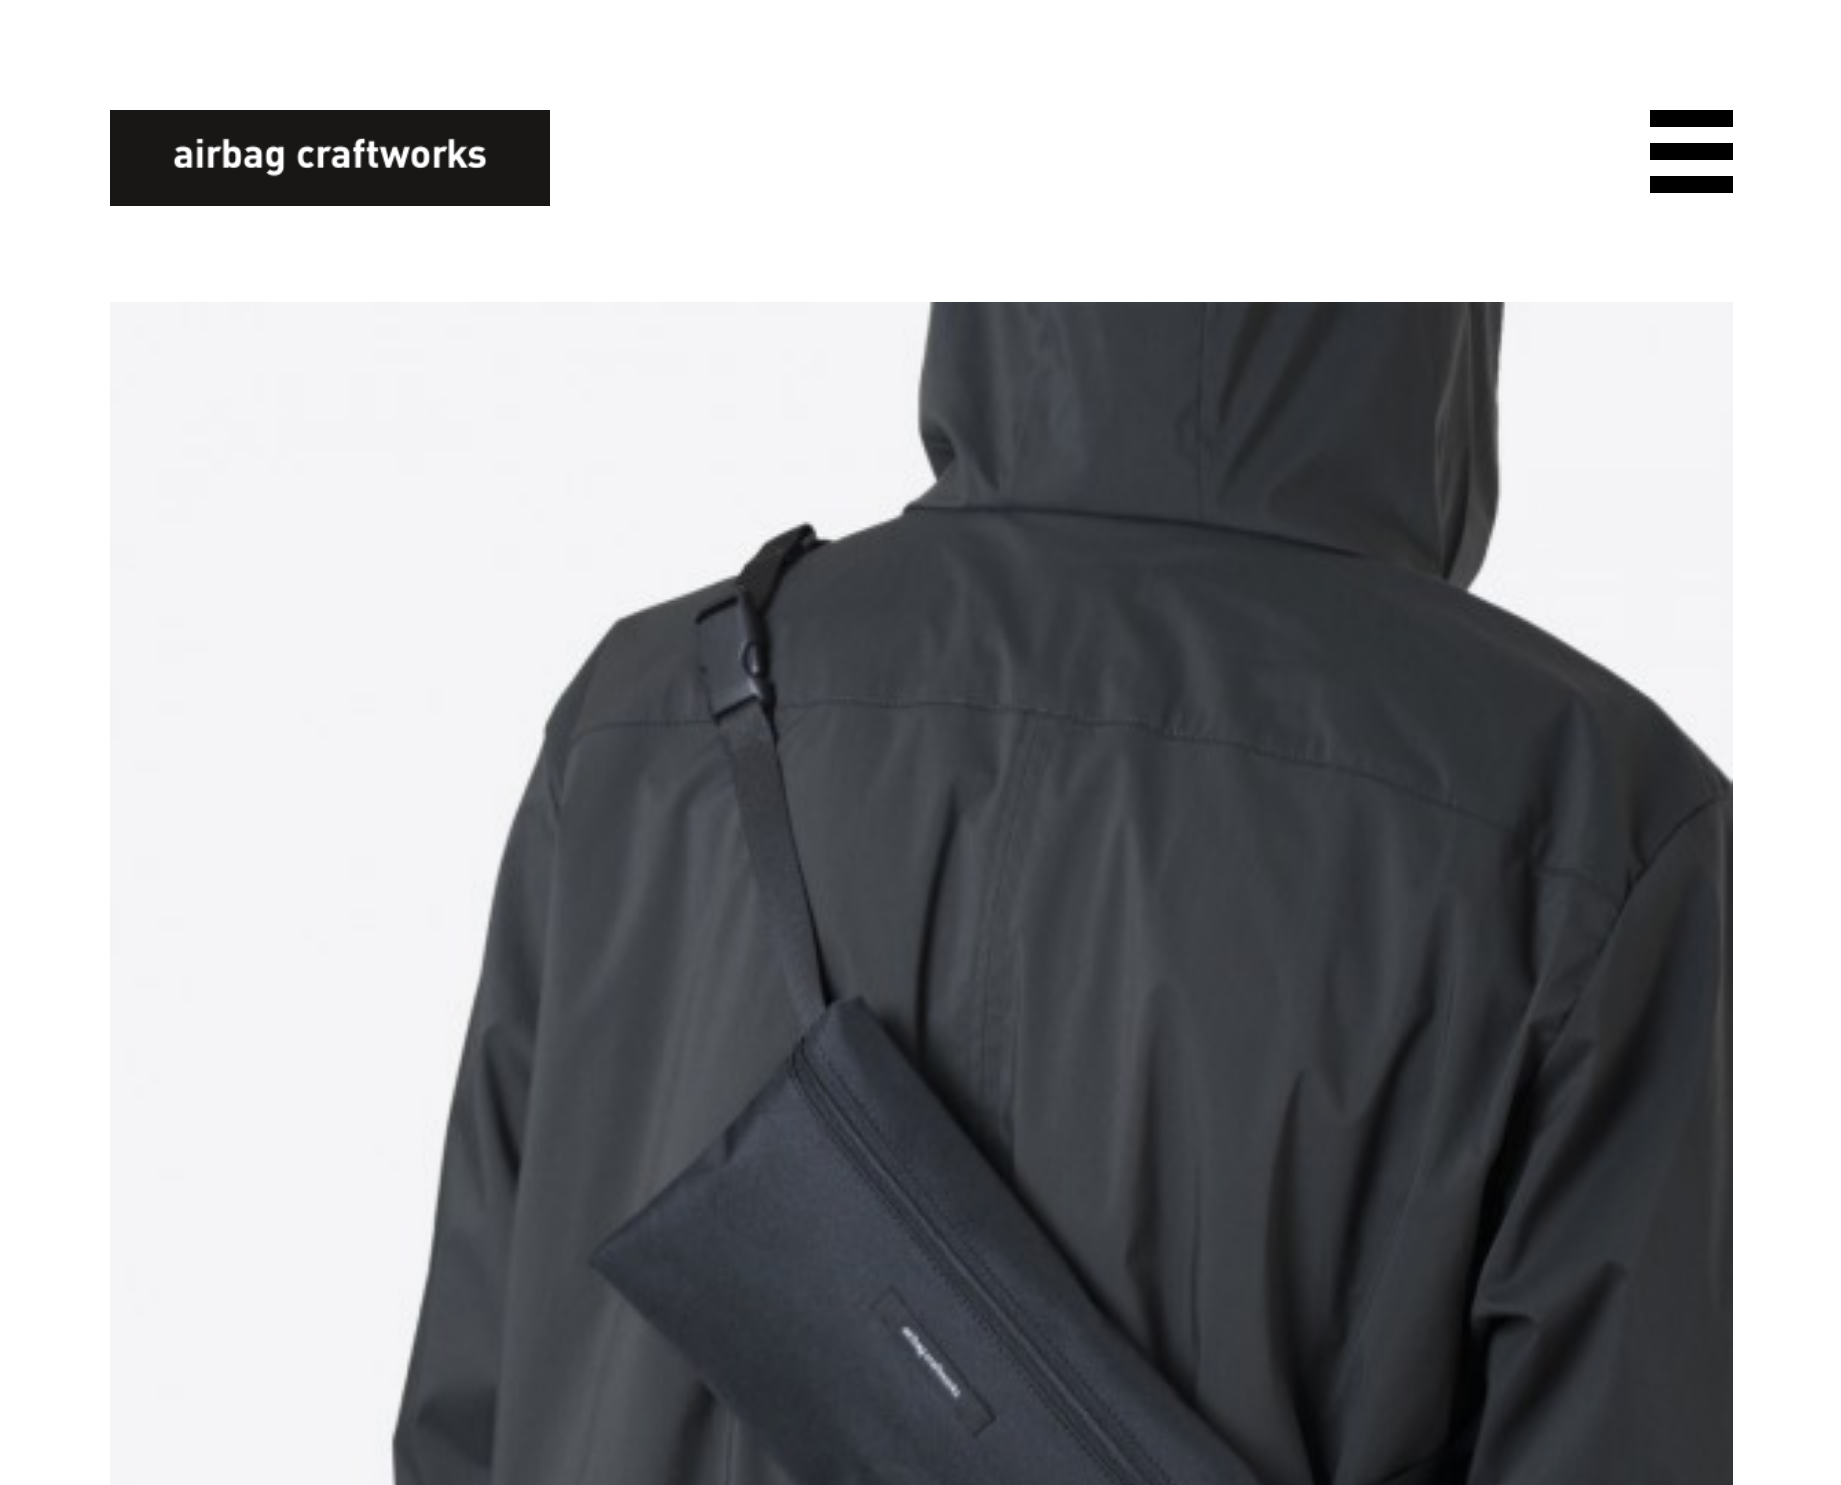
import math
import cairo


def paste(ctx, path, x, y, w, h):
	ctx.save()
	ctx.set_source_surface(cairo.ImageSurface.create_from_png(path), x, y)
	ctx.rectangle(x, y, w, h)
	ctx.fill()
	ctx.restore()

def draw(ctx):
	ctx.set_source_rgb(1, 1, 1)
	ctx.paint()
	paste(ctx, 'media/1.png', 110, 110, 440, 96)
	ctx.set_source_rgb(0, 0, 0)
	ctx.rectangle(1650, 110, 83, 17)
	ctx.rectangle(1650, 143, 83, 17)
	ctx.rectangle(1650, 176, 83, 17)
	ctx.fill()
	paste(ctx, 'media/2.png', 110, 302, 1623, 1183)


surface = cairo.ImageSurface(cairo.FORMAT_RGB24, 1841, 1485)
ctx = cairo.Context(surface)
options = cairo.FontOptions()
options.set_hint_metrics(cairo.HINT_METRICS_OFF)
options.set_hint_style(cairo.HINT_STYLE_NONE)
ctx.set_font_options(options)
ctx.set_miter_limit(4)
draw(ctx)
surface.write_to_png('image.png')
